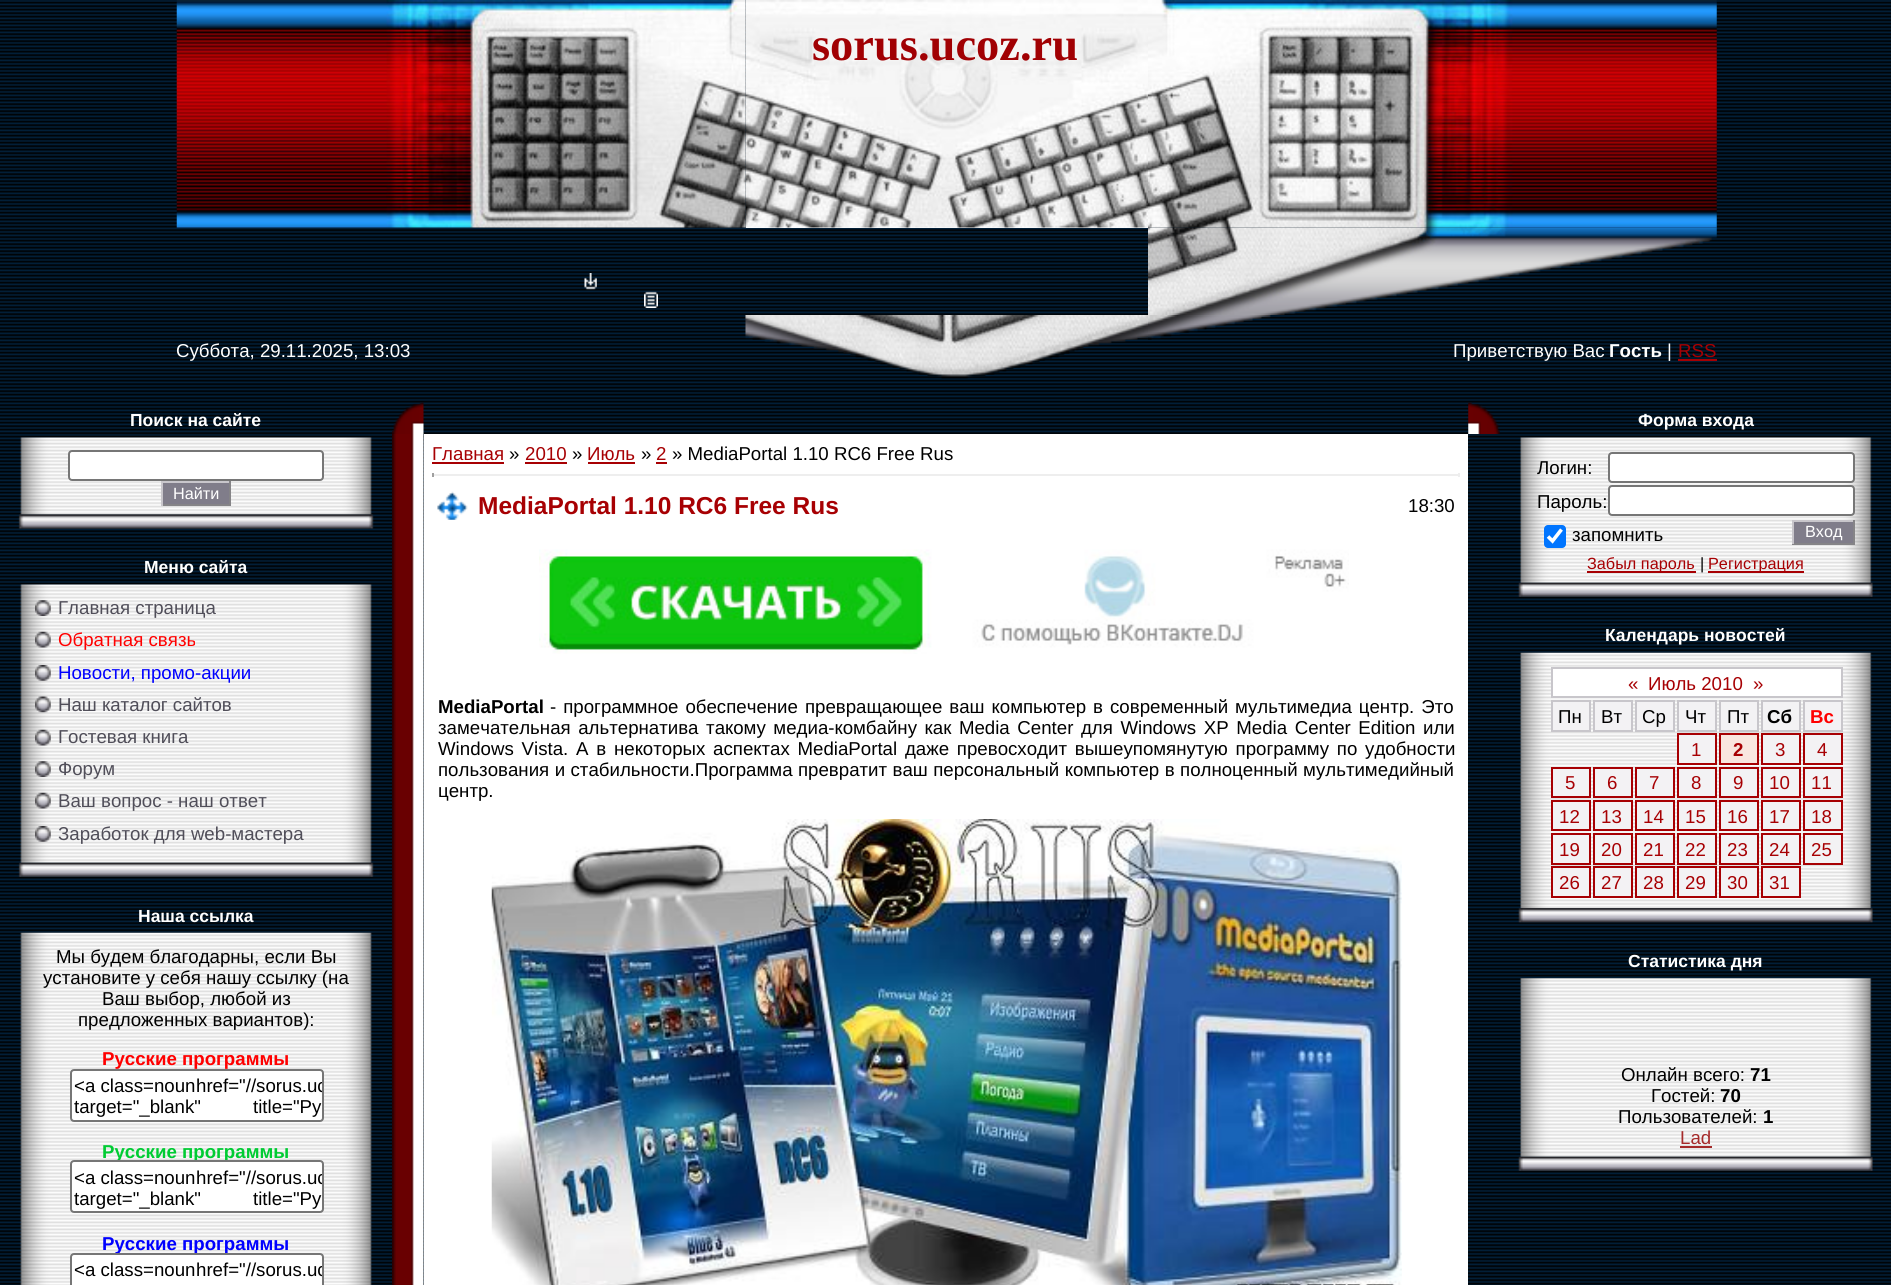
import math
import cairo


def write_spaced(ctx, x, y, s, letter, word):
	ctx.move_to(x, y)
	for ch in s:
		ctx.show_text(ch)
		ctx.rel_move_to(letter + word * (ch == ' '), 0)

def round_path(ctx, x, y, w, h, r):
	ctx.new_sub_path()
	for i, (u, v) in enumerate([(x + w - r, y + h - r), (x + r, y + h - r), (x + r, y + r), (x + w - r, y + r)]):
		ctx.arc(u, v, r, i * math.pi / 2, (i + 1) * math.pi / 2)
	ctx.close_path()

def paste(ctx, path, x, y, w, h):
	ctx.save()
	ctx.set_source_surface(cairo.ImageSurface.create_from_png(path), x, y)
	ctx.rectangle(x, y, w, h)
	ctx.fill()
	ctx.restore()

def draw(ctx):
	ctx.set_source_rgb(1, 1, 1)
	ctx.paint()
	paste(ctx, 'media/1.png', 0, 0, 1891, 1285)
	ctx.set_source_rgb(1, 1, 1)
	ctx.rectangle(746, 227, 402, 1)
	ctx.fill()
	paste(ctx, 'media/3.png', 745, 0, 403, 228)
	paste(ctx, 'media/2.png', 176, 0, 570, 228)
	ctx.select_font_face('Liberation Serif', cairo.FONT_SLANT_NORMAL, cairo.FONT_WEIGHT_BOLD)
	ctx.set_font_size(46.5)
	ctx.set_source_rgb(0.631, 0, 0.012)
	ctx.move_to(812, 60)
	ctx.show_text('sorus.ucoz.ru')
	paste(ctx, 'media/7.png', 1148, 227, 569, 88)
	paste(ctx, 'media/4.png', 1148, 0, 569, 228)
	paste(ctx, 'media/5.png', 584, 273, 13, 17)
	paste(ctx, 'media/6.png', 644, 291, 14, 17)
	ctx.select_font_face('Liberation Sans')
	ctx.set_font_size(18.67)
	ctx.set_source_rgb(1, 1, 1)
	ctx.move_to(176, 357)
	ctx.show_text('Суббота, 29.11.2025, 13:03')
	paste(ctx, 'media/8.png', 745, 315, 403, 64)
	paste(ctx, 'media/9.png', 1148, 315, 123, 25)
	ctx.move_to(1453, 357)
	ctx.show_text('Приветствую Вас')
	ctx.select_font_face('Liberation Sans', cairo.FONT_SLANT_NORMAL, cairo.FONT_WEIGHT_BOLD)
	ctx.move_to(1609, 357)
	ctx.show_text('Гость')
	ctx.select_font_face('Liberation Sans')
	ctx.move_to(1667, 357)
	ctx.show_text('|')
	ctx.set_source_rgb(0.655, 0, 0.012)
	ctx.move_to(1678, 357)
	ctx.show_text('RSS')
	ctx.rectangle(1678, 359, 39, 2)
	ctx.fill()
	ctx.select_font_face('Liberation Sans', cairo.FONT_SLANT_NORMAL, cairo.FONT_WEIGHT_BOLD)
	ctx.set_font_size(17.5)
	ctx.set_source_rgb(1, 1, 1)
	ctx.move_to(130, 426)
	ctx.show_text('Поиск на сайте')
	paste(ctx, 'media/10.png', 20, 437, 352, 78)
	round_path(ctx, 69, 451, 254, 29, 3)
	ctx.fill_preserve()
	ctx.set_source_rgb(0.463, 0.463, 0.463)
	ctx.stroke()
	ctx.set_source_rgb(0.502, 0.49, 0.541)
	ctx.rectangle(163, 483, 66, 21)
	ctx.fill()
	ctx.set_source_rgb(0.784, 0.776, 0.796)
	ctx.rectangle(161, 481, 70, 2)
	ctx.fill()
	ctx.set_source_rgb(0.522, 0.518, 0.529)
	ctx.rectangle(229, 481, 2, 25)
	ctx.rectangle(161, 504, 70, 2)
	ctx.fill()
	ctx.set_source_rgb(0.784, 0.776, 0.796)
	ctx.rectangle(161, 481, 2, 25)
	ctx.fill()
	ctx.select_font_face('Liberation Sans')
	ctx.set_font_size(16.25)
	ctx.set_source_rgb(1, 1, 1)
	ctx.move_to(173, 499)
	ctx.show_text('Найти')
	paste(ctx, 'media/11.png', 18, 514, 356, 15)
	ctx.select_font_face('Liberation Sans', cairo.FONT_SLANT_NORMAL, cairo.FONT_WEIGHT_BOLD)
	ctx.set_font_size(17.5)
	ctx.move_to(144, 573)
	ctx.show_text('Меню сайта')
	paste(ctx, 'media/12.png', 20, 584, 352, 279)
	paste(ctx, 'media/13.png', 35, 600, 16, 16)
	ctx.select_font_face('Liberation Sans')
	ctx.set_font_size(18.67)
	ctx.set_source_rgb(0.314, 0.306, 0.349)
	ctx.move_to(58, 614)
	ctx.show_text('Главная страница')
	paste(ctx, 'media/14.png', 35, 631, 16, 17)
	ctx.set_source_rgb(1, 0, 0)
	ctx.move_to(58, 646)
	ctx.show_text('Обратная связь')
	paste(ctx, 'media/15.png', 35, 665, 16, 16)
	ctx.set_source_rgb(0, 0, 1)
	ctx.move_to(58, 679)
	ctx.show_text('Новости, промо-акции')
	paste(ctx, 'media/16.png', 35, 696, 16, 17)
	ctx.set_source_rgb(0.314, 0.306, 0.349)
	ctx.move_to(58, 711)
	ctx.show_text('Наш каталог сайтов')
	paste(ctx, 'media/14.png', 35, 729, 16, 17)
	ctx.move_to(58, 743)
	ctx.show_text('Гостевая книга')
	paste(ctx, 'media/13.png', 35, 761, 16, 16)
	ctx.move_to(58, 775)
	ctx.show_text('Форум')
	paste(ctx, 'media/14.png', 35, 792, 16, 17)
	ctx.move_to(58, 807)
	ctx.show_text('Ваш вопрос - наш ответ')
	paste(ctx, 'media/15.png', 35, 826, 16, 16)
	ctx.move_to(58, 840)
	ctx.show_text('Заработок для web-мастера')
	paste(ctx, 'media/17.png', 18, 862, 356, 15)
	ctx.select_font_face('Liberation Sans', cairo.FONT_SLANT_NORMAL, cairo.FONT_WEIGHT_BOLD)
	ctx.set_font_size(17.5)
	ctx.set_source_rgb(1, 1, 1)
	ctx.move_to(138, 922)
	ctx.show_text('Наша ссылка')
	paste(ctx, 'media/18.png', 20, 932, 352, 353)
	ctx.select_font_face('Liberation Sans')
	ctx.set_font_size(18.67)
	ctx.set_source_rgb(0, 0, 0)
	for x, y, s in [
		(56, 963, 'Мы будем благодарны, если Вы'),
		(43, 984, 'установите у себя нашу ссылку (на'),
		(102, 1005, 'Ваш выбор, любой из'),
		(78, 1026, 'предложенных вариантов):'),
	]:
		ctx.move_to(x, y)
		ctx.show_text(s)
	ctx.select_font_face('Liberation Sans', cairo.FONT_SLANT_NORMAL, cairo.FONT_WEIGHT_BOLD)
	ctx.set_source_rgb(1, 0, 0)
	ctx.move_to(102, 1065)
	ctx.show_text('Русские программы')
	ctx.set_source_rgb(1, 1, 1)
	round_path(ctx, 71, 1070, 252, 51, 3)
	ctx.fill_preserve()
	ctx.set_source_rgb(0.463, 0.463, 0.463)
	ctx.stroke()
	ctx.select_font_face('Liberation Sans')
	ctx.set_source_rgb(0, 0, 0)
	ctx.move_to(74, 1092)
	ctx.show_text('<a class=noun')
	ctx.save()
	ctx.rectangle(72, 1071, 250, 49)
	ctx.clip()
	ctx.move_to(196, 1092)
	ctx.show_text('href="//sorus.uc')
	ctx.restore()
	ctx.move_to(74, 1113)
	ctx.show_text('target="_blank"')
	ctx.move_to(253, 1113)
	ctx.show_text('title="Ру')
	ctx.select_font_face('Liberation Sans', cairo.FONT_SLANT_NORMAL, cairo.FONT_WEIGHT_BOLD)
	ctx.set_source_rgb(0, 0.8, 0.2)
	ctx.move_to(102, 1158)
	ctx.show_text('Русские программы')
	ctx.set_source_rgb(1, 1, 1)
	round_path(ctx, 71, 1161, 252, 51, 3)
	ctx.fill_preserve()
	ctx.set_source_rgb(0.463, 0.463, 0.463)
	ctx.stroke()
	ctx.select_font_face('Liberation Sans')
	ctx.set_source_rgb(0, 0, 0)
	ctx.move_to(74, 1184)
	ctx.show_text('<a class=noun')
	ctx.save()
	ctx.rectangle(72, 1162, 250, 49)
	ctx.clip()
	ctx.move_to(196, 1184)
	ctx.show_text('href="//sorus.uc')
	ctx.restore()
	ctx.move_to(74, 1205)
	ctx.show_text('target="_blank"')
	ctx.move_to(253, 1205)
	ctx.show_text('title="Ру')
	ctx.select_font_face('Liberation Sans', cairo.FONT_SLANT_NORMAL, cairo.FONT_WEIGHT_BOLD)
	ctx.set_source_rgb(0, 0, 1)
	ctx.move_to(102, 1250)
	ctx.show_text('Русские программы')
	ctx.set_source_rgb(1, 1, 1)
	round_path(ctx, 71, 1254, 252, 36, 3)
	ctx.fill_preserve()
	ctx.set_source_rgb(0.463, 0.463, 0.463)
	ctx.stroke()
	ctx.select_font_face('Liberation Sans')
	ctx.set_source_rgb(0, 0, 0)
	ctx.move_to(74, 1276)
	ctx.show_text('<a class=noun')
	ctx.save()
	ctx.rectangle(72, 1255, 250, 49)
	ctx.clip()
	ctx.move_to(196, 1276)
	ctx.show_text('href="//sorus.uc')
	ctx.restore()
	paste(ctx, 'media/19.png', 392, 402, 32, 32)
	paste(ctx, 'media/20.png', 1468, 402, 32, 32)
	paste(ctx, 'media/21.png', 392, 434, 32, 851)
	ctx.set_source_rgb(1, 1, 1)
	ctx.rectangle(424, 434, 1044, 851)
	ctx.fill()
	ctx.set_source_rgb(0.655, 0, 0.012)
	ctx.move_to(432, 460)
	ctx.show_text('Главная')
	ctx.rectangle(432, 462, 72, 2)
	ctx.fill()
	ctx.set_source_rgb(0, 0, 0)
	ctx.move_to(509, 460)
	ctx.show_text('»')
	ctx.set_source_rgb(0.655, 0, 0.012)
	ctx.move_to(525, 460)
	ctx.show_text('2010')
	ctx.rectangle(525, 462, 42, 2)
	ctx.fill()
	ctx.set_source_rgb(0, 0, 0)
	ctx.move_to(572, 460)
	ctx.show_text('»')
	ctx.set_source_rgb(0.655, 0, 0.012)
	ctx.move_to(587, 460)
	ctx.show_text('Июль')
	ctx.rectangle(588, 462, 47, 2)
	ctx.fill()
	ctx.set_source_rgb(0, 0, 0)
	ctx.move_to(641, 460)
	ctx.show_text('»')
	ctx.set_source_rgb(0.655, 0, 0.012)
	ctx.move_to(656, 460)
	ctx.show_text('2')
	ctx.rectangle(656, 462, 11, 2)
	ctx.fill()
	ctx.set_source_rgb(0, 0, 0)
	ctx.move_to(672, 460)
	ctx.show_text('» MediaPortal 1.10 RC6 Free Rus')
	ctx.set_source_rgb(0.933, 0.933, 0.933)
	ctx.rectangle(1458, 473, 2, 4)
	ctx.rectangle(432, 474, 1028, 2)
	ctx.fill()
	ctx.set_source_rgb(0.624, 0.624, 0.624)
	ctx.rectangle(432, 473, 2, 4)
	ctx.fill()
	paste(ctx, 'media/22.png', 437, 491, 31, 29)
	ctx.select_font_face('Liberation Sans', cairo.FONT_SLANT_NORMAL, cairo.FONT_WEIGHT_BOLD)
	ctx.set_font_size(24.5)
	ctx.set_source_rgb(0.655, 0, 0.012)
	ctx.move_to(478, 514)
	ctx.show_text('MediaPortal 1.10 RC6 Free Rus')
	ctx.select_font_face('Liberation Sans')
	ctx.set_font_size(18.67)
	ctx.set_source_rgb(0, 0, 0)
	ctx.move_to(1408, 512)
	ctx.show_text('18:30')
	paste(ctx, 'media/23.png', 539, 549, 810, 105)
	ctx.select_font_face('Liberation Sans', cairo.FONT_SLANT_NORMAL, cairo.FONT_WEIGHT_BOLD)
	ctx.move_to(438, 713)
	ctx.show_text('MediaPortal')
	ctx.select_font_face('Liberation Sans')
	write_spaced(ctx, 550, 713, '- программное обеспечение превращающее ваш компьютер в современный мультимедиа центр. Это', 0, 1.8)
	write_spaced(ctx, 438, 734, 'замечательная альтернатива такому медиа-комбайну как Media Center для Windows XP Media Center Edition или', 0, 2.4)
	write_spaced(ctx, 438, 755, 'Windows Vista. А в некоторых аспектах MediaPortal даже превосходит вышеупомянутую программу по удобности', 0, 2.6)
	write_spaced(ctx, 438, 776, 'пользования и стабильности.Программа превратит ваш персональный компьютер в полноценный мультимедийный', 0, 0.25)
	ctx.move_to(438, 797)
	ctx.show_text('центр.')
	paste(ctx, 'media/24.png', 491, 819, 911, 466)
	ctx.select_font_face('Liberation Sans', cairo.FONT_SLANT_NORMAL, cairo.FONT_WEIGHT_BOLD)
	ctx.set_font_size(17.5)
	ctx.set_source_rgb(1, 1, 1)
	ctx.move_to(1638, 426)
	ctx.show_text('Форма входа')
	paste(ctx, 'media/25.png', 1520, 437, 352, 146)
	ctx.select_font_face('Liberation Sans')
	ctx.set_font_size(18.67)
	ctx.set_source_rgb(0, 0, 0)
	ctx.move_to(1537, 474)
	ctx.show_text('Логин:')
	ctx.set_source_rgb(1, 1, 1)
	round_path(ctx, 1609, 453, 245, 29, 3)
	ctx.fill_preserve()
	ctx.set_source_rgb(0.463, 0.463, 0.463)
	ctx.stroke()
	ctx.set_source_rgb(0, 0, 0)
	ctx.move_to(1537, 508)
	ctx.show_text('Пароль:')
	ctx.set_source_rgb(1, 1, 1)
	round_path(ctx, 1609, 486, 245, 29, 3)
	ctx.fill_preserve()
	ctx.set_source_rgb(0.463, 0.463, 0.463)
	ctx.stroke()
	ctx.set_source_rgb(0, 0.459, 1)
	round_path(ctx, 1544, 525, 22, 23, 4)
	ctx.fill()
	ctx.new_path()
	ctx.move_to(1548, 536.5)
	ctx.line_to(1552.5, 541)
	ctx.line_to(1561.5, 529.5)
	ctx.set_source_rgb(1, 1, 1)
	ctx.set_line_width(3.6)
	ctx.stroke()
	ctx.set_source_rgb(0, 0, 0)
	ctx.move_to(1572, 541)
	ctx.show_text('запомнить')
	ctx.set_source_rgb(0.502, 0.49, 0.541)
	ctx.rectangle(1794, 522, 59, 21)
	ctx.fill()
	ctx.set_source_rgb(0.784, 0.776, 0.796)
	ctx.rectangle(1792, 520, 63, 2)
	ctx.fill()
	ctx.set_source_rgb(0.522, 0.518, 0.529)
	ctx.rectangle(1853, 520, 2, 24)
	ctx.rectangle(1792, 543, 63, 2)
	ctx.fill()
	ctx.set_source_rgb(0.784, 0.776, 0.796)
	ctx.rectangle(1792, 520, 2, 24)
	ctx.fill()
	ctx.set_font_size(16.25)
	ctx.set_source_rgb(1, 1, 1)
	ctx.move_to(1805, 537)
	ctx.show_text('Вход')
	ctx.set_source_rgb(0.655, 0, 0.012)
	ctx.rectangle(1587, 571, 109, 2)
	ctx.fill()
	ctx.move_to(1587, 569)
	ctx.show_text('Забыл пароль')
	ctx.set_source_rgb(0, 0, 0)
	ctx.move_to(1700, 569)
	ctx.show_text('|')
	ctx.set_source_rgb(0.655, 0, 0.012)
	ctx.rectangle(1708, 571, 96, 2)
	ctx.fill()
	ctx.move_to(1708, 569)
	ctx.show_text('Регистрация')
	paste(ctx, 'media/26.png', 1518, 582, 355, 15)
	ctx.select_font_face('Liberation Sans', cairo.FONT_SLANT_NORMAL, cairo.FONT_WEIGHT_BOLD)
	ctx.set_font_size(17.5)
	ctx.set_source_rgb(1, 1, 1)
	ctx.move_to(1605, 641)
	ctx.show_text('Календарь новостей')
	paste(ctx, 'media/27.png', 1520, 652, 352, 257)
	ctx.rectangle(1552, 668, 290, 29)
	ctx.fill_preserve()
	ctx.set_source_rgb(0.784, 0.776, 0.796)
	ctx.set_line_width(2)
	ctx.stroke()
	ctx.select_font_face('Liberation Sans')
	ctx.set_font_size(18.67)
	ctx.set_source_rgb(0.655, 0, 0.012)
	for x, y, s in [
		(1628, 690, '«'),
		(1648, 690, 'Июль 2010'),
		(1753, 690, '»'),
	]:
		ctx.move_to(x, y)
		ctx.show_text(s)
	ctx.set_source_rgb(0.953, 0.949, 0.957)
	ctx.rectangle(1552, 701, 38, 30)
	ctx.fill_preserve()
	ctx.set_source_rgb(0.784, 0.776, 0.796)
	ctx.stroke()
	ctx.set_source_rgb(0, 0, 0)
	ctx.move_to(1558, 723)
	ctx.show_text('Пн')
	ctx.set_source_rgb(0.953, 0.949, 0.957)
	ctx.rectangle(1594, 701, 38, 30)
	ctx.fill_preserve()
	ctx.set_source_rgb(0.784, 0.776, 0.796)
	ctx.stroke()
	ctx.set_source_rgb(0, 0, 0)
	ctx.move_to(1601, 723)
	ctx.show_text('Вт')
	ctx.set_source_rgb(0.953, 0.949, 0.957)
	ctx.rectangle(1636, 701, 38, 30)
	ctx.fill_preserve()
	ctx.set_source_rgb(0.784, 0.776, 0.796)
	ctx.stroke()
	ctx.set_source_rgb(0, 0, 0)
	ctx.move_to(1642, 723)
	ctx.show_text('Ср')
	ctx.set_source_rgb(0.953, 0.949, 0.957)
	ctx.rectangle(1678, 701, 38, 30)
	ctx.fill_preserve()
	ctx.set_source_rgb(0.784, 0.776, 0.796)
	ctx.stroke()
	ctx.set_source_rgb(0, 0, 0)
	ctx.move_to(1685, 723)
	ctx.show_text('Чт')
	ctx.set_source_rgb(0.953, 0.949, 0.957)
	ctx.rectangle(1720, 701, 38, 30)
	ctx.fill_preserve()
	ctx.set_source_rgb(0.784, 0.776, 0.796)
	ctx.stroke()
	ctx.set_source_rgb(0, 0, 0)
	ctx.move_to(1727, 723)
	ctx.show_text('Пт')
	ctx.set_source_rgb(0.953, 0.949, 0.957)
	ctx.rectangle(1762, 701, 38, 30)
	ctx.fill_preserve()
	ctx.set_source_rgb(0.784, 0.776, 0.796)
	ctx.stroke()
	ctx.select_font_face('Liberation Sans', cairo.FONT_SLANT_NORMAL, cairo.FONT_WEIGHT_BOLD)
	ctx.set_source_rgb(0, 0, 0)
	ctx.move_to(1767, 723)
	ctx.show_text('Сб')
	ctx.set_source_rgb(0.953, 0.949, 0.957)
	ctx.rectangle(1804, 701, 38, 30)
	ctx.fill_preserve()
	ctx.set_source_rgb(0.784, 0.776, 0.796)
	ctx.stroke()
	ctx.set_source_rgb(1, 0, 0)
	ctx.move_to(1810, 723)
	ctx.show_text('Вс')
	ctx.set_source_rgb(0.953, 0.949, 0.957)
	ctx.rectangle(1678, 734, 38, 30)
	ctx.fill_preserve()
	ctx.set_source_rgb(0.655, 0, 0.012)
	ctx.stroke()
	ctx.select_font_face('Liberation Sans')
	ctx.move_to(1691, 756)
	ctx.show_text('1')
	ctx.set_source_rgb(0.973, 0.902, 0.875)
	ctx.rectangle(1720, 734, 38, 30)
	ctx.fill_preserve()
	ctx.set_source_rgb(0.655, 0, 0.012)
	ctx.stroke()
	ctx.select_font_face('Liberation Sans', cairo.FONT_SLANT_NORMAL, cairo.FONT_WEIGHT_BOLD)
	ctx.move_to(1733, 756)
	ctx.show_text('2')
	ctx.set_source_rgb(0.953, 0.949, 0.957)
	ctx.rectangle(1762, 734, 38, 30)
	ctx.fill_preserve()
	ctx.set_source_rgb(0.655, 0, 0.012)
	ctx.stroke()
	ctx.select_font_face('Liberation Sans')
	ctx.move_to(1775, 756)
	ctx.show_text('3')
	ctx.set_source_rgb(0.953, 0.949, 0.957)
	ctx.rectangle(1804, 734, 38, 30)
	ctx.fill_preserve()
	ctx.set_source_rgb(0.655, 0, 0.012)
	ctx.stroke()
	ctx.move_to(1817, 756)
	ctx.show_text('4')
	ctx.set_source_rgb(0.953, 0.949, 0.957)
	ctx.rectangle(1552, 768, 38, 29)
	ctx.fill_preserve()
	ctx.set_source_rgb(0.655, 0, 0.012)
	ctx.stroke()
	ctx.move_to(1565, 789)
	ctx.show_text('5')
	ctx.set_source_rgb(0.953, 0.949, 0.957)
	ctx.rectangle(1594, 768, 38, 29)
	ctx.fill_preserve()
	ctx.set_source_rgb(0.655, 0, 0.012)
	ctx.stroke()
	ctx.move_to(1607, 789)
	ctx.show_text('6')
	ctx.set_source_rgb(0.953, 0.949, 0.957)
	ctx.rectangle(1636, 768, 38, 29)
	ctx.fill_preserve()
	ctx.set_source_rgb(0.655, 0, 0.012)
	ctx.stroke()
	ctx.move_to(1649, 789)
	ctx.show_text('7')
	ctx.set_source_rgb(0.953, 0.949, 0.957)
	ctx.rectangle(1678, 768, 38, 29)
	ctx.fill_preserve()
	ctx.set_source_rgb(0.655, 0, 0.012)
	ctx.stroke()
	ctx.move_to(1691, 789)
	ctx.show_text('8')
	ctx.set_source_rgb(0.953, 0.949, 0.957)
	ctx.rectangle(1720, 768, 38, 29)
	ctx.fill_preserve()
	ctx.set_source_rgb(0.655, 0, 0.012)
	ctx.stroke()
	ctx.move_to(1733, 789)
	ctx.show_text('9')
	ctx.set_source_rgb(0.953, 0.949, 0.957)
	ctx.rectangle(1762, 768, 38, 29)
	ctx.fill_preserve()
	ctx.set_source_rgb(0.655, 0, 0.012)
	ctx.stroke()
	ctx.move_to(1769, 789)
	ctx.show_text('10')
	ctx.set_source_rgb(0.953, 0.949, 0.957)
	ctx.rectangle(1804, 768, 38, 29)
	ctx.fill_preserve()
	ctx.set_source_rgb(0.655, 0, 0.012)
	ctx.stroke()
	ctx.move_to(1811, 789)
	ctx.show_text('11')
	ctx.set_source_rgb(0.953, 0.949, 0.957)
	ctx.rectangle(1552, 801, 38, 29)
	ctx.fill_preserve()
	ctx.set_source_rgb(0.655, 0, 0.012)
	ctx.stroke()
	ctx.move_to(1559, 823)
	ctx.show_text('12')
	ctx.set_source_rgb(0.953, 0.949, 0.957)
	ctx.rectangle(1594, 801, 38, 29)
	ctx.fill_preserve()
	ctx.set_source_rgb(0.655, 0, 0.012)
	ctx.stroke()
	ctx.move_to(1601, 823)
	ctx.show_text('13')
	ctx.set_source_rgb(0.953, 0.949, 0.957)
	ctx.rectangle(1636, 801, 38, 29)
	ctx.fill_preserve()
	ctx.set_source_rgb(0.655, 0, 0.012)
	ctx.stroke()
	ctx.move_to(1643, 823)
	ctx.show_text('14')
	ctx.set_source_rgb(0.953, 0.949, 0.957)
	ctx.rectangle(1678, 801, 38, 29)
	ctx.fill_preserve()
	ctx.set_source_rgb(0.655, 0, 0.012)
	ctx.stroke()
	ctx.move_to(1685, 823)
	ctx.show_text('15')
	ctx.set_source_rgb(0.953, 0.949, 0.957)
	ctx.rectangle(1720, 801, 38, 29)
	ctx.fill_preserve()
	ctx.set_source_rgb(0.655, 0, 0.012)
	ctx.stroke()
	ctx.move_to(1727, 823)
	ctx.show_text('16')
	ctx.set_source_rgb(0.953, 0.949, 0.957)
	ctx.rectangle(1762, 801, 38, 29)
	ctx.fill_preserve()
	ctx.set_source_rgb(0.655, 0, 0.012)
	ctx.stroke()
	ctx.move_to(1769, 823)
	ctx.show_text('17')
	ctx.set_source_rgb(0.953, 0.949, 0.957)
	ctx.rectangle(1804, 801, 38, 29)
	ctx.fill_preserve()
	ctx.set_source_rgb(0.655, 0, 0.012)
	ctx.stroke()
	ctx.move_to(1811, 823)
	ctx.show_text('18')
	ctx.set_source_rgb(0.953, 0.949, 0.957)
	ctx.rectangle(1552, 834, 38, 30)
	ctx.fill_preserve()
	ctx.set_source_rgb(0.655, 0, 0.012)
	ctx.stroke()
	ctx.move_to(1559, 856)
	ctx.show_text('19')
	ctx.set_source_rgb(0.953, 0.949, 0.957)
	ctx.rectangle(1594, 834, 38, 30)
	ctx.fill_preserve()
	ctx.set_source_rgb(0.655, 0, 0.012)
	ctx.stroke()
	ctx.move_to(1601, 856)
	ctx.show_text('20')
	ctx.set_source_rgb(0.953, 0.949, 0.957)
	ctx.rectangle(1636, 834, 38, 30)
	ctx.fill_preserve()
	ctx.set_source_rgb(0.655, 0, 0.012)
	ctx.stroke()
	ctx.move_to(1643, 856)
	ctx.show_text('21')
	ctx.set_source_rgb(0.953, 0.949, 0.957)
	ctx.rectangle(1678, 834, 38, 30)
	ctx.fill_preserve()
	ctx.set_source_rgb(0.655, 0, 0.012)
	ctx.stroke()
	ctx.move_to(1685, 856)
	ctx.show_text('22')
	ctx.set_source_rgb(0.953, 0.949, 0.957)
	ctx.rectangle(1720, 834, 38, 30)
	ctx.fill_preserve()
	ctx.set_source_rgb(0.655, 0, 0.012)
	ctx.stroke()
	ctx.move_to(1727, 856)
	ctx.show_text('23')
	ctx.set_source_rgb(0.953, 0.949, 0.957)
	ctx.rectangle(1762, 834, 38, 30)
	ctx.fill_preserve()
	ctx.set_source_rgb(0.655, 0, 0.012)
	ctx.stroke()
	ctx.move_to(1769, 856)
	ctx.show_text('24')
	ctx.set_source_rgb(0.953, 0.949, 0.957)
	ctx.rectangle(1804, 834, 38, 30)
	ctx.fill_preserve()
	ctx.set_source_rgb(0.655, 0, 0.012)
	ctx.stroke()
	ctx.move_to(1811, 856)
	ctx.show_text('25')
	ctx.set_source_rgb(0.953, 0.949, 0.957)
	ctx.rectangle(1552, 867, 38, 30)
	ctx.fill_preserve()
	ctx.set_source_rgb(0.655, 0, 0.012)
	ctx.stroke()
	ctx.move_to(1559, 889)
	ctx.show_text('26')
	ctx.set_source_rgb(0.953, 0.949, 0.957)
	ctx.rectangle(1594, 867, 38, 30)
	ctx.fill_preserve()
	ctx.set_source_rgb(0.655, 0, 0.012)
	ctx.stroke()
	ctx.move_to(1601, 889)
	ctx.show_text('27')
	ctx.set_source_rgb(0.953, 0.949, 0.957)
	ctx.rectangle(1636, 867, 38, 30)
	ctx.fill_preserve()
	ctx.set_source_rgb(0.655, 0, 0.012)
	ctx.stroke()
	ctx.move_to(1643, 889)
	ctx.show_text('28')
	ctx.set_source_rgb(0.953, 0.949, 0.957)
	ctx.rectangle(1678, 867, 38, 30)
	ctx.fill_preserve()
	ctx.set_source_rgb(0.655, 0, 0.012)
	ctx.stroke()
	ctx.move_to(1685, 889)
	ctx.show_text('29')
	ctx.set_source_rgb(0.953, 0.949, 0.957)
	ctx.rectangle(1720, 867, 38, 30)
	ctx.fill_preserve()
	ctx.set_source_rgb(0.655, 0, 0.012)
	ctx.stroke()
	ctx.move_to(1727, 889)
	ctx.show_text('30')
	ctx.set_source_rgb(0.953, 0.949, 0.957)
	ctx.rectangle(1762, 867, 38, 30)
	ctx.fill_preserve()
	ctx.set_source_rgb(0.655, 0, 0.012)
	ctx.stroke()
	ctx.move_to(1769, 889)
	ctx.show_text('31')
	paste(ctx, 'media/28.png', 1518, 908, 355, 15)
	ctx.select_font_face('Liberation Sans', cairo.FONT_SLANT_NORMAL, cairo.FONT_WEIGHT_BOLD)
	ctx.set_font_size(17.5)
	ctx.set_source_rgb(1, 1, 1)
	ctx.move_to(1628, 967)
	ctx.show_text('Статистика дня')
	paste(ctx, 'media/29.png', 1520, 978, 352, 179)
	ctx.select_font_face('Liberation Sans')
	ctx.set_font_size(18.67)
	ctx.set_source_rgb(0, 0, 0)
	ctx.move_to(1621, 1081)
	ctx.show_text('Онлайн всего:')
	ctx.select_font_face('Liberation Sans', cairo.FONT_SLANT_NORMAL, cairo.FONT_WEIGHT_BOLD)
	ctx.move_to(1750, 1081)
	ctx.show_text('71')
	ctx.select_font_face('Liberation Sans')
	ctx.move_to(1651, 1102)
	ctx.show_text('Гостей:')
	ctx.select_font_face('Liberation Sans', cairo.FONT_SLANT_NORMAL, cairo.FONT_WEIGHT_BOLD)
	ctx.move_to(1720, 1102)
	ctx.show_text('70')
	ctx.select_font_face('Liberation Sans')
	ctx.move_to(1618, 1123)
	ctx.show_text('Пользователей:')
	ctx.select_font_face('Liberation Sans', cairo.FONT_SLANT_NORMAL, cairo.FONT_WEIGHT_BOLD)
	ctx.move_to(1763, 1123)
	ctx.show_text('1')
	ctx.select_font_face('Liberation Sans')
	ctx.set_source_rgb(0.647, 0.165, 0.165)
	ctx.move_to(1680, 1144)
	ctx.show_text('Lad')
	ctx.rectangle(1680, 1146, 32, 2)
	ctx.fill()
	paste(ctx, 'media/30.png', 1518, 1156, 355, 15)


surface = cairo.ImageSurface(cairo.FORMAT_RGB24, 1891, 1285)
ctx = cairo.Context(surface)
options = cairo.FontOptions()
options.set_hint_metrics(cairo.HINT_METRICS_OFF)
options.set_hint_style(cairo.HINT_STYLE_NONE)
ctx.set_font_options(options)
ctx.set_miter_limit(4)
draw(ctx)
surface.write_to_png('image.png')
